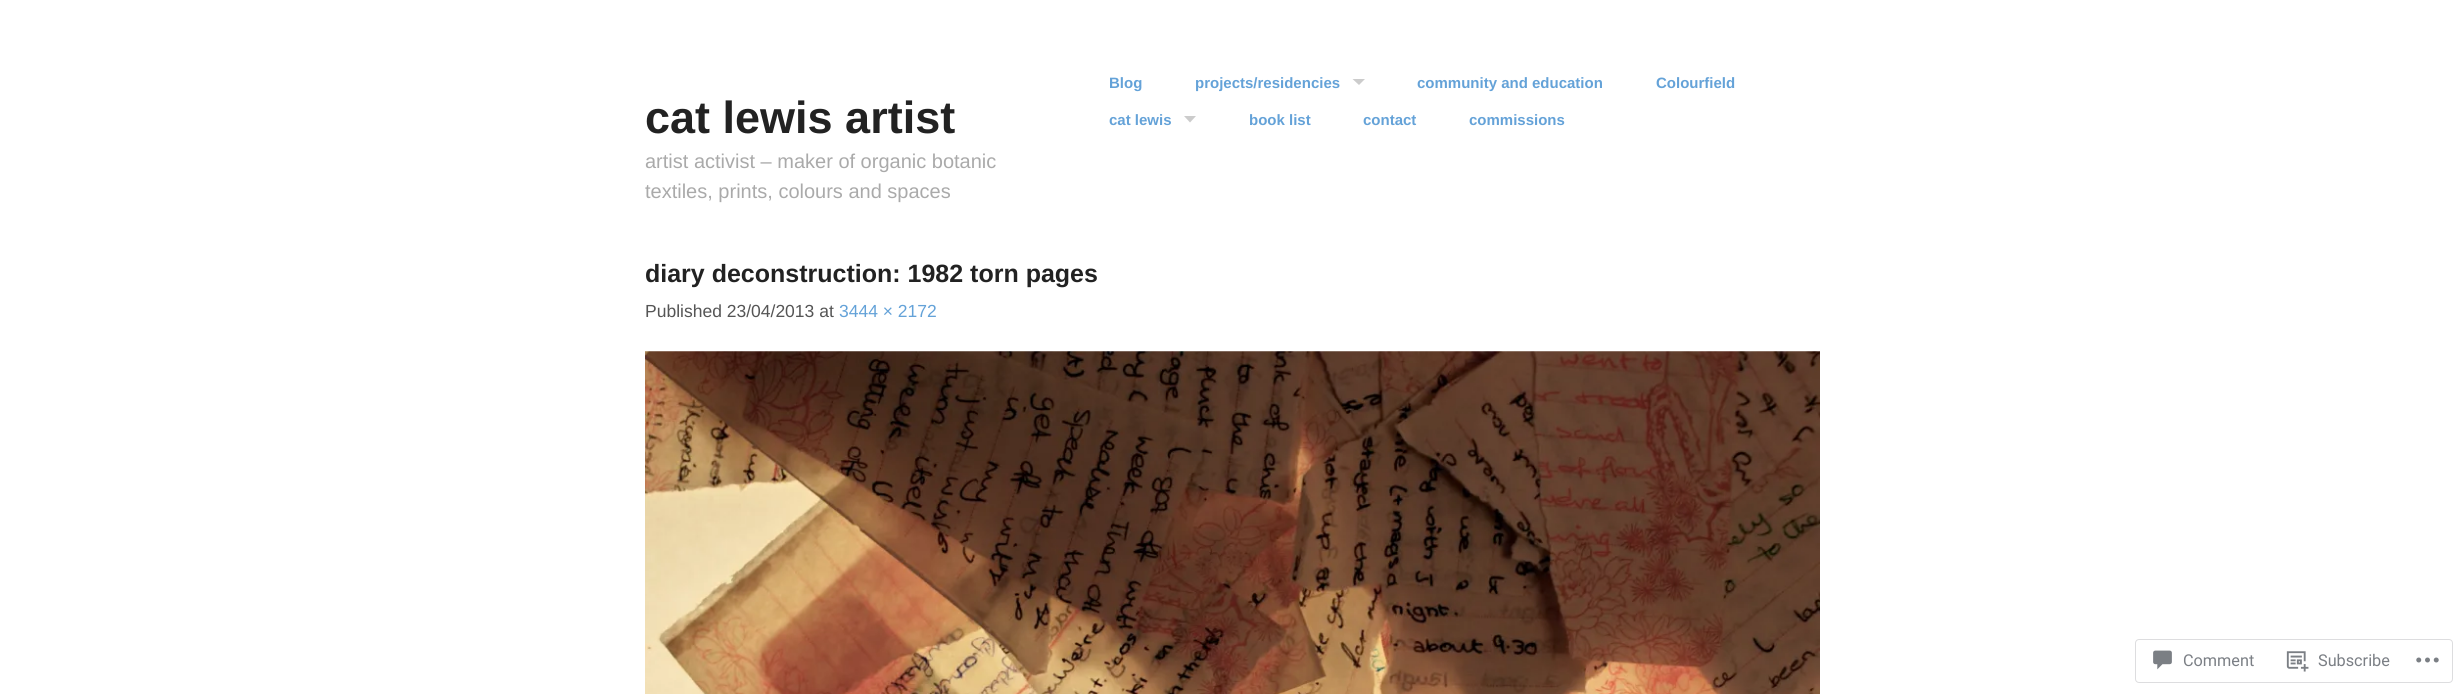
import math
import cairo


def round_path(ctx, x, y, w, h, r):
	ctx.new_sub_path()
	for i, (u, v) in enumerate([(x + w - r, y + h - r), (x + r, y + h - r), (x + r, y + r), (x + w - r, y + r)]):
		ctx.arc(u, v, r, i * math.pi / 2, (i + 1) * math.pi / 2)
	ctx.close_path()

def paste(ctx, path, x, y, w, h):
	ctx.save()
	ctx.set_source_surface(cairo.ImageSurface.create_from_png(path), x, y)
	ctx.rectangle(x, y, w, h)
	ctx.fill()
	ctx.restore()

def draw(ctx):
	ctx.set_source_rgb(1, 1, 1)
	ctx.paint()
	ctx.select_font_face('Liberation Sans', cairo.FONT_SLANT_NORMAL, cairo.FONT_WEIGHT_BOLD)
	ctx.set_font_size(45)
	ctx.set_source_rgb(0.133, 0.133, 0.133)
	ctx.move_to(645, 133)
	ctx.show_text('cat lewis artist')
	ctx.select_font_face('Liberation Sans')
	ctx.set_font_size(20)
	ctx.set_source_rgb(0.667, 0.667, 0.667)
	ctx.move_to(645, 168)
	ctx.show_text('artist activist – maker of organic botanic')
	ctx.move_to(645, 198)
	ctx.show_text('textiles, prints, colours and spaces')
	ctx.select_font_face('Liberation Sans', cairo.FONT_SLANT_NORMAL, cairo.FONT_WEIGHT_BOLD)
	ctx.set_font_size(15)
	ctx.set_source_rgb(0.392, 0.635, 0.847)
	ctx.move_to(1109, 88)
	ctx.show_text('Blog')
	ctx.move_to(1195, 88)
	ctx.show_text('projects/residencies')
	ctx.set_source_rgb(0.8, 0.8, 0.8)
	ctx.new_path()
	ctx.move_to(1352.5, 79)
	ctx.line_to(1365, 79)
	ctx.line_to(1359, 85)
	ctx.close_path()
	ctx.fill()
	ctx.set_source_rgb(0.392, 0.635, 0.847)
	for x, y, s in [
		(1417, 88, 'community and education'),
		(1656, 88, 'Colourfield'),
		(1109, 125, 'cat lewis'),
	]:
		ctx.move_to(x, y)
		ctx.show_text(s)
	ctx.set_source_rgb(0.8, 0.8, 0.8)
	ctx.new_path()
	ctx.move_to(1184, 116)
	ctx.line_to(1196, 116)
	ctx.line_to(1190, 122.5)
	ctx.close_path()
	ctx.fill()
	ctx.set_source_rgb(0.392, 0.635, 0.847)
	for x, y, s in [
		(1249, 125, 'book list'),
		(1363, 125, 'contact'),
		(1469, 125, 'commissions'),
	]:
		ctx.move_to(x, y)
		ctx.show_text(s)
	ctx.set_font_size(25)
	ctx.set_source_rgb(0.133, 0.133, 0.133)
	ctx.move_to(645, 282)
	ctx.show_text('diary deconstruction: 1982 torn pages')
	ctx.select_font_face('Liberation Sans')
	ctx.set_font_size(17.5)
	ctx.set_source_rgb(0.333, 0.333, 0.333)
	ctx.move_to(645, 317)
	ctx.show_text('Published 23/04/2013 at')
	ctx.set_source_rgb(0.392, 0.635, 0.847)
	ctx.move_to(839, 317)
	ctx.show_text('3444 × 2172')
	paste(ctx, 'media/1.png', 645, 351, 1175, 343)
	round_path(ctx, 2135.5, 639.5, 317, 43, 3.5)
	ctx.set_source_rgb(0.867, 0.867, 0.875)
	ctx.set_line_width(1)
	ctx.stroke()
	paste(ctx, 'media/2.png', 2153, 650, 19, 20)
	ctx.select_font_face('Roboto')
	ctx.set_font_size(16.25)
	ctx.set_source_rgb(0.482, 0.498, 0.522)
	ctx.move_to(2183, 666)
	ctx.show_text('Comment')
	paste(ctx, 'media/3.png', 2286, 651, 23, 21)
	ctx.move_to(2318, 666)
	ctx.show_text('Subscribe')
	paste(ctx, 'media/4.png', 2416, 657, 23, 6)


surface = cairo.ImageSurface(cairo.FORMAT_RGB24, 2464, 694)
ctx = cairo.Context(surface)
options = cairo.FontOptions()
options.set_hint_metrics(cairo.HINT_METRICS_OFF)
options.set_hint_style(cairo.HINT_STYLE_NONE)
ctx.set_font_options(options)
ctx.set_miter_limit(4)
draw(ctx)
surface.write_to_png('image.png')
